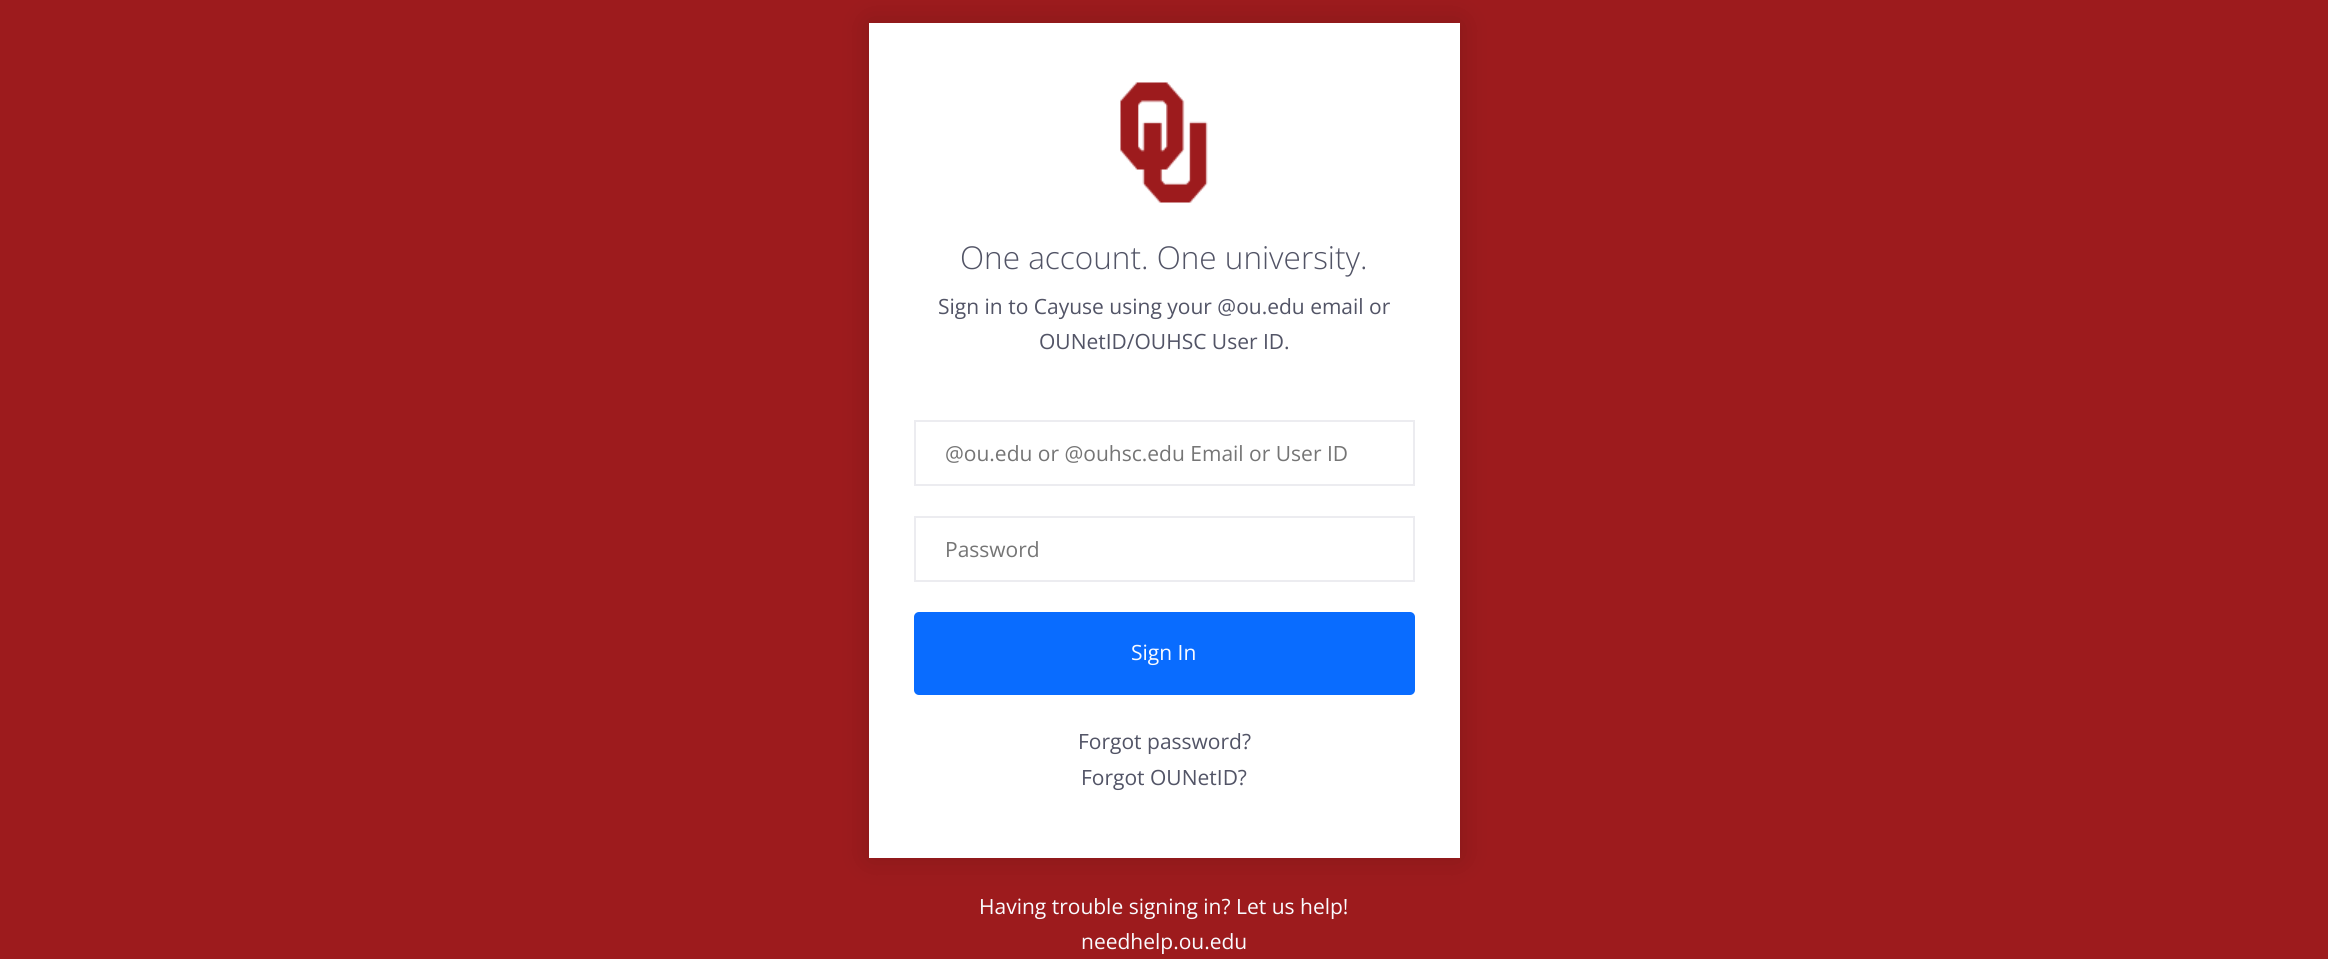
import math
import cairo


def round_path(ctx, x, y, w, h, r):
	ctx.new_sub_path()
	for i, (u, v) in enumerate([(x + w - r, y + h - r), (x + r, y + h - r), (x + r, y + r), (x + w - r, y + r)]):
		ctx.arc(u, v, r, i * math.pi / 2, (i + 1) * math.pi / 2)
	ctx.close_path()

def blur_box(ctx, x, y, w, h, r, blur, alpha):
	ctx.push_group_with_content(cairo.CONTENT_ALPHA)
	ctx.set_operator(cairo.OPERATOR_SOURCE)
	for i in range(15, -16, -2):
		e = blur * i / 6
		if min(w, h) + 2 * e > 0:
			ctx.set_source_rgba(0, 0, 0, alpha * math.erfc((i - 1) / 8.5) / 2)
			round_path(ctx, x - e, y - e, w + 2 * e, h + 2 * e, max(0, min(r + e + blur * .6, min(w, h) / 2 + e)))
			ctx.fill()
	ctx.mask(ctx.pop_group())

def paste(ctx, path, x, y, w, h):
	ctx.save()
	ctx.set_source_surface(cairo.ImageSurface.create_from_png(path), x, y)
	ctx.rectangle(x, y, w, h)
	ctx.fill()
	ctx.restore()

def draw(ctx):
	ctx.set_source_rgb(0.616, 0.106, 0.114)
	ctx.paint()
	ctx.set_source_rgb(0, 0, 0)
	blur_box(ctx, 869, 23, 591, 835, 0, 15, 0.15)
	ctx.set_source_rgb(1, 1, 1)
	ctx.rectangle(869, 23, 591, 835)
	ctx.fill()
	paste(ctx, 'media/1.png', 1120, 82, 88, 121)
	ctx.select_font_face('Open Sans Light')
	ctx.set_font_size(31.5)
	ctx.set_source_rgb(0.322, 0.329, 0.4)
	ctx.move_to(960, 269)
	ctx.show_text('One account. One university.')
	ctx.select_font_face('Open Sans')
	ctx.set_font_size(21)
	ctx.move_to(938, 314)
	ctx.show_text('Sign in to Cayuse using your @ou.edu email or')
	ctx.move_to(1039, 349)
	ctx.show_text('OUNetID/OUHSC User ID.')
	ctx.rectangle(915, 421, 499, 64)
	ctx.set_source_rgb(0.922, 0.925, 0.941)
	ctx.stroke()
	ctx.set_source_rgb(0.459, 0.459, 0.459)
	ctx.move_to(945, 461)
	ctx.show_text('@ou.edu or @ouhsc.edu Email or User ID')
	ctx.rectangle(915, 517, 499, 64)
	ctx.set_source_rgb(0.922, 0.925, 0.941)
	ctx.stroke()
	ctx.set_source_rgb(0.459, 0.459, 0.459)
	ctx.move_to(945, 557)
	ctx.show_text('Password')
	ctx.set_source_rgb(0.039, 0.424, 1)
	round_path(ctx, 914, 612, 501, 83, 5)
	ctx.fill()
	ctx.set_source_rgb(0.98, 0.984, 1)
	ctx.move_to(1131, 660)
	ctx.show_text('Sign In')
	ctx.set_source_rgb(0.322, 0.329, 0.4)
	ctx.move_to(1078, 749)
	ctx.show_text('Forgot password?')
	ctx.move_to(1081, 785)
	ctx.show_text('Forgot OUNetID?')
	ctx.set_source_rgb(0.98, 0.984, 1)
	ctx.move_to(979, 914)
	ctx.show_text('Having trouble signing in? Let us help!')
	ctx.move_to(1081, 949)
	ctx.show_text('needhelp.ou.edu')


surface = cairo.ImageSurface(cairo.FORMAT_RGB24, 2328, 959)
ctx = cairo.Context(surface)
options = cairo.FontOptions()
options.set_hint_metrics(cairo.HINT_METRICS_OFF)
options.set_hint_style(cairo.HINT_STYLE_NONE)
ctx.set_font_options(options)
ctx.set_miter_limit(4)
draw(ctx)
surface.write_to_png('image.png')
